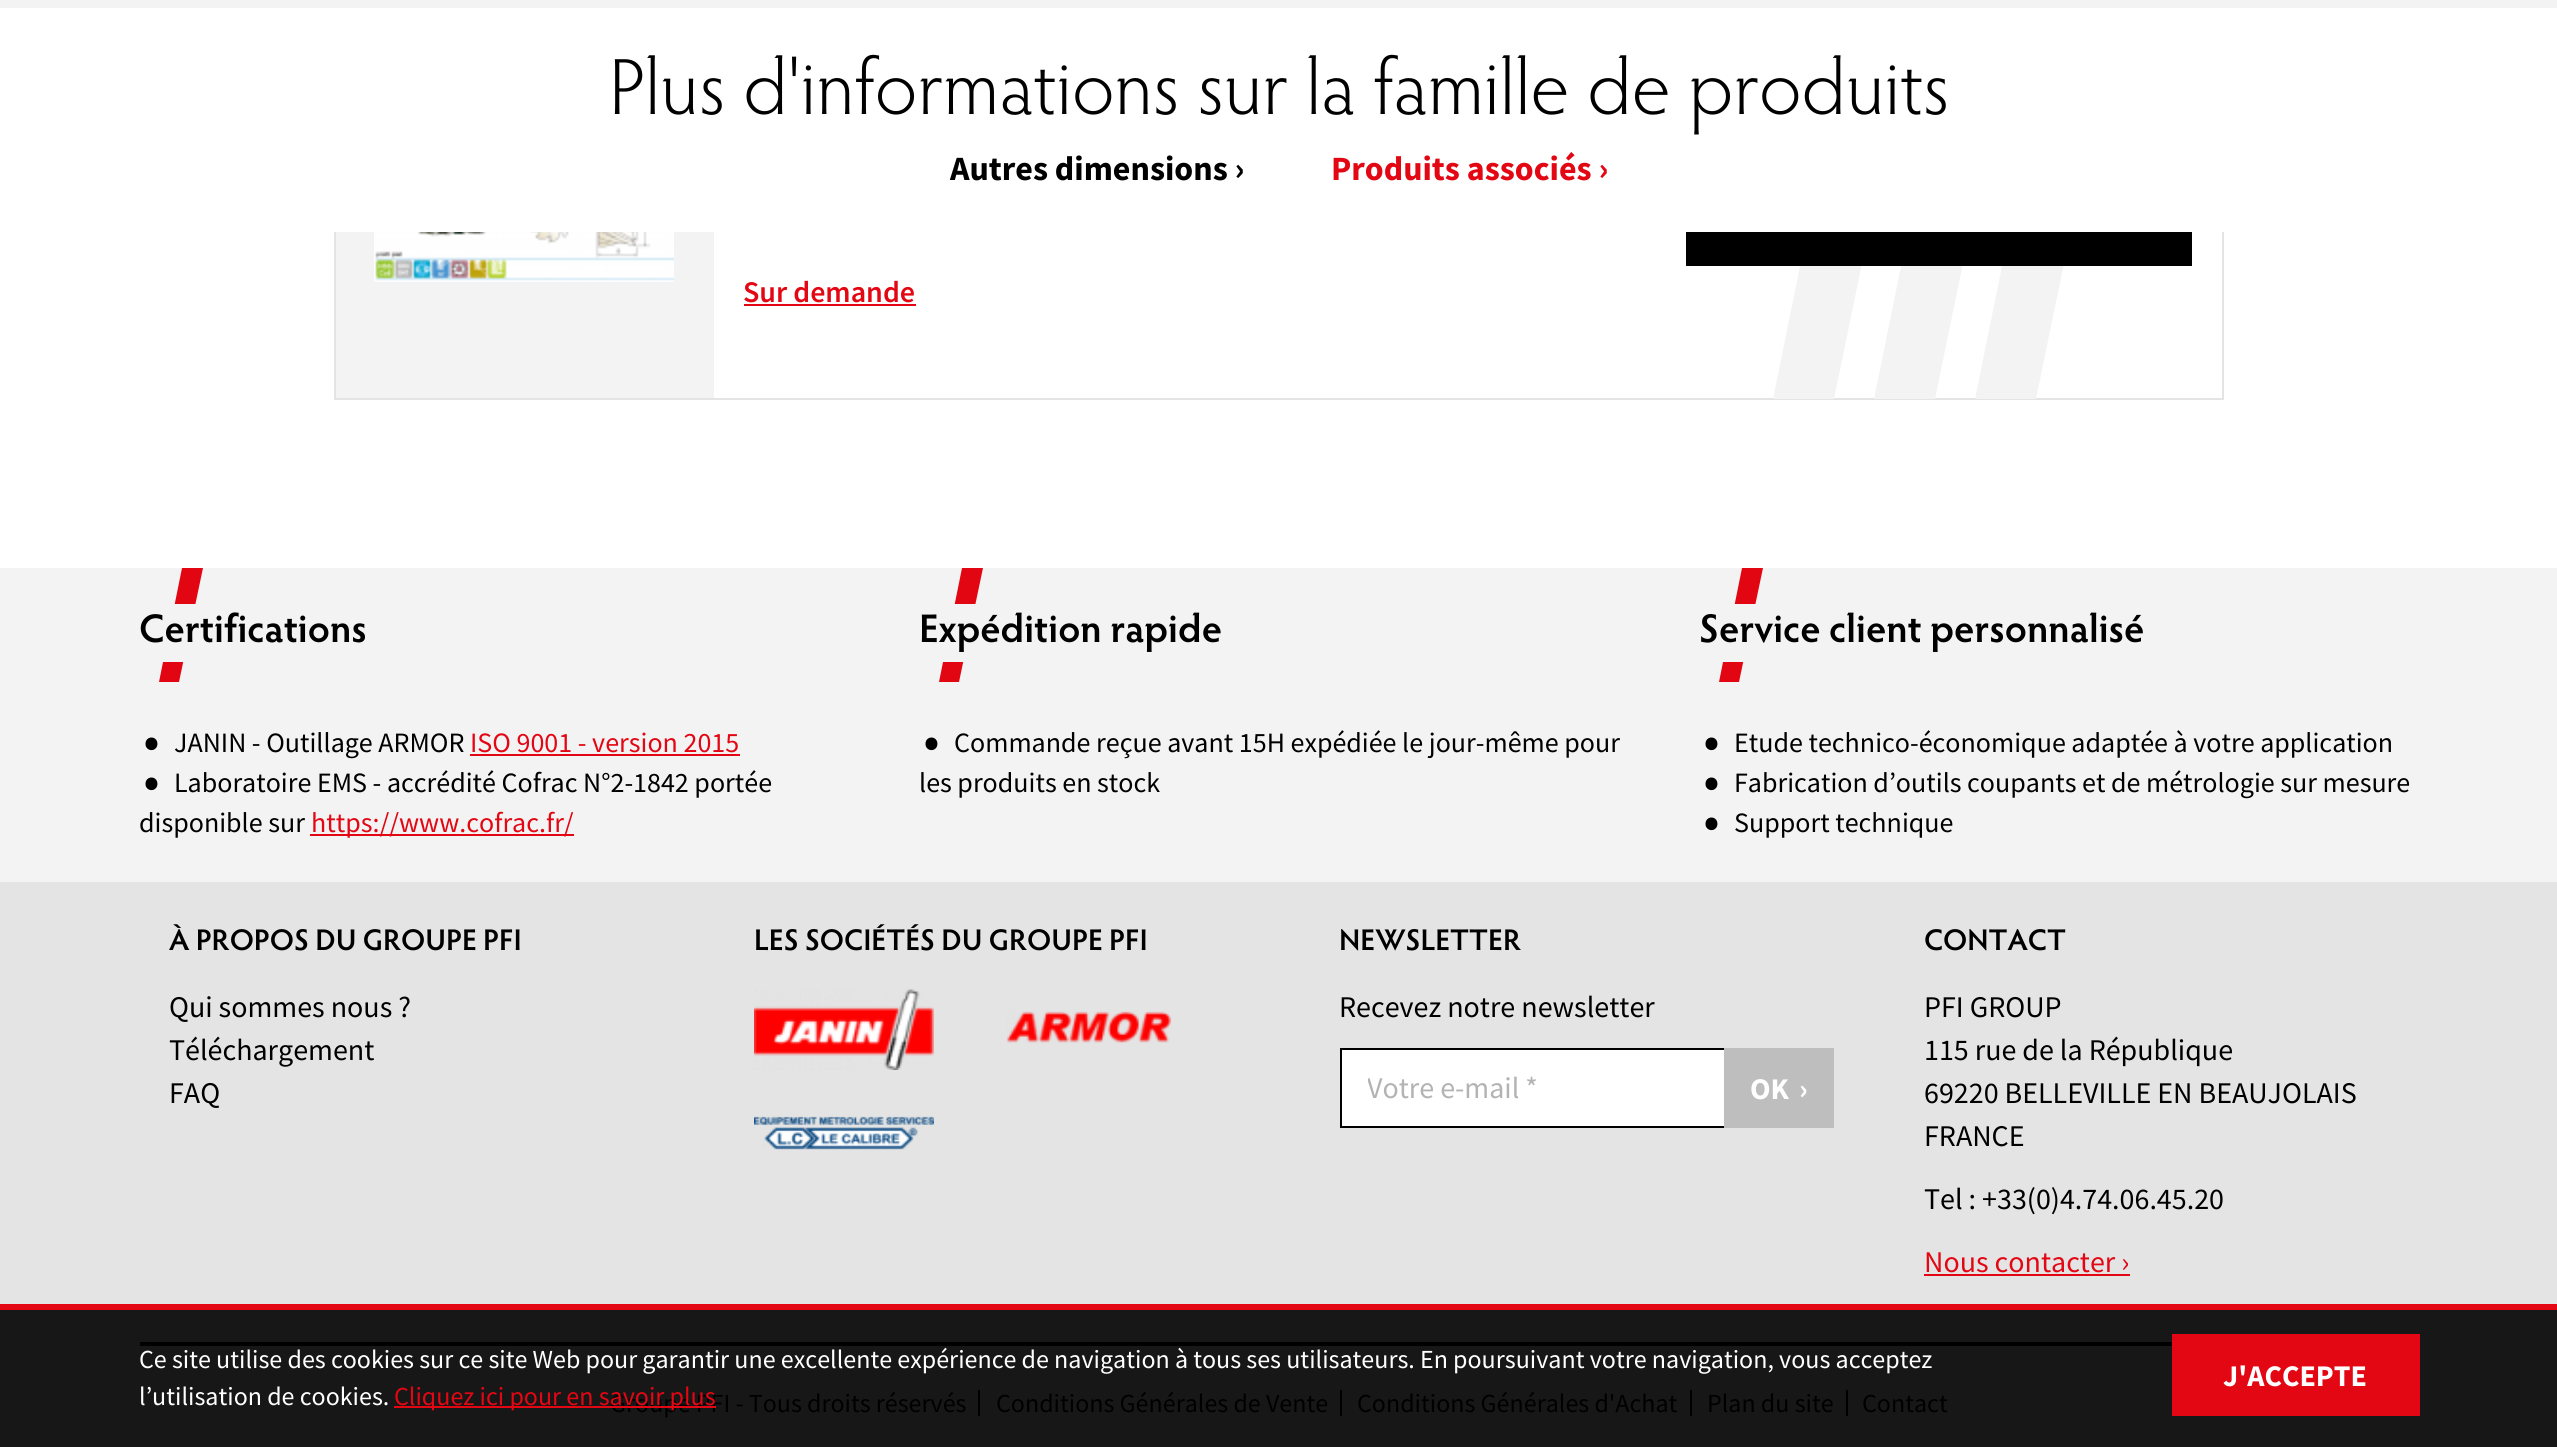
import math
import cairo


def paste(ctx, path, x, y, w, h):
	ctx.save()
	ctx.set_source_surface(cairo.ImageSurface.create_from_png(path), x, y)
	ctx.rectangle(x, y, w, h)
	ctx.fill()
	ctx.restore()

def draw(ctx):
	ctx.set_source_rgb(1, 1, 1)
	ctx.paint()
	ctx.rectangle(335, 51, 1888, 348)
	ctx.set_source_rgb(0.894, 0.894, 0.894)
	ctx.stroke()
	ctx.set_source_rgb(0.953, 0.953, 0.953)
	ctx.new_path()
	ctx.move_to(2045, 55)
	ctx.line_to(1975, 399)
	ctx.line_to(2036, 399)
	ctx.line_to(2107, 55)
	ctx.close_path()
	ctx.fill()
	ctx.new_path()
	ctx.move_to(1944, 55)
	ctx.line_to(1874, 399)
	ctx.line_to(1935, 399)
	ctx.line_to(2006, 55)
	ctx.close_path()
	ctx.fill()
	ctx.save()
	ctx.rectangle(1774, 52, 334, 350)
	ctx.clip()
	ctx.new_path()
	ctx.move_to(1843, 55)
	ctx.line_to(1773, 399)
	ctx.line_to(1834, 399)
	ctx.line_to(1905, 55)
	ctx.close_path()
	ctx.fill()
	ctx.restore()
	ctx.set_source_rgb(1, 1, 1)
	ctx.rectangle(334, 50, 1890, 182)
	ctx.fill()
	ctx.set_source_rgb(0.953, 0.953, 0.953)
	ctx.rectangle(0, 0, 2557, 8)
	ctx.fill()
	ctx.select_font_face('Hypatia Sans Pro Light')
	ctx.set_font_size(80)
	ctx.set_source_rgb(0, 0, 0)
	ctx.move_to(609, 114)
	ctx.show_text('Plus d\'informations sur la famille de produits')
	ctx.select_font_face('Source Sans Pro', cairo.FONT_SLANT_NORMAL, cairo.FONT_WEIGHT_BOLD)
	ctx.set_font_size(34)
	ctx.move_to(950, 180)
	ctx.show_text('Autres dimensions ›')
	ctx.set_source_rgb(0.89, 0.024, 0.075)
	ctx.move_to(1331, 180)
	ctx.show_text('Produits associés ›')
	ctx.set_source_rgb(0.953, 0.953, 0.953)
	ctx.rectangle(336, 232, 378, 166)
	ctx.fill()
	paste(ctx, 'media/1.png', 374, 232, 300, 50)
	ctx.select_font_face('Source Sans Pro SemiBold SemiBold')
	ctx.set_font_size(30)
	ctx.set_source_rgb(0.89, 0.024, 0.075)
	ctx.move_to(743, 302)
	ctx.show_text('Sur demande')
	ctx.rectangle(744, 304, 172, 2)
	ctx.fill()
	ctx.set_source_rgb(0, 0, 0)
	ctx.rectangle(1686, 232, 506, 34)
	ctx.fill()
	ctx.set_source_rgb(0.953, 0.953, 0.953)
	ctx.rectangle(0, 568, 2557, 314)
	ctx.fill()
	ctx.set_source_rgb(0.886, 0.024, 0.075)
	ctx.new_path()
	ctx.move_to(182, 568)
	ctx.line_to(159, 682)
	ctx.line_to(179, 682)
	ctx.line_to(203, 568)
	ctx.close_path()
	ctx.fill()
	ctx.set_source_rgb(0.953, 0.953, 0.953)
	ctx.rectangle(163, 604, 33, 58)
	ctx.fill()
	ctx.select_font_face('Hypatia Sans Pro SemiBold')
	ctx.set_font_size(40)
	ctx.set_source_rgb(0, 0, 0)
	ctx.move_to(139, 642)
	ctx.show_text('Certifications')
	ctx.select_font_face('Source Sans Pro')
	ctx.set_font_size(100)
	ctx.move_to(139, 776)
	ctx.show_text('·')
	ctx.set_font_size(28)
	ctx.move_to(174, 752)
	ctx.show_text('JANIN - Outillage ARMOR')
	ctx.set_source_rgb(0.89, 0.024, 0.075)
	ctx.move_to(470, 752)
	ctx.show_text('ISO 9001 - version 2015')
	ctx.rectangle(470, 754, 270, 2)
	ctx.fill()
	ctx.set_font_size(100)
	ctx.set_source_rgb(0, 0, 0)
	ctx.move_to(139, 816)
	ctx.show_text('·')
	ctx.set_font_size(28)
	ctx.move_to(174, 792)
	ctx.show_text('Laboratoire EMS - accrédité Cofrac N°2-1842 portée')
	ctx.move_to(139, 832)
	ctx.show_text('disponible sur')
	ctx.set_source_rgb(0.89, 0.024, 0.075)
	ctx.rectangle(310, 834, 264, 2)
	ctx.fill()
	ctx.move_to(311, 832)
	ctx.show_text('https://www.cofrac.fr/')
	ctx.set_source_rgb(0.886, 0.024, 0.075)
	ctx.new_path()
	ctx.move_to(962, 568)
	ctx.line_to(939, 682)
	ctx.line_to(959, 682)
	ctx.line_to(983, 568)
	ctx.close_path()
	ctx.fill()
	ctx.set_source_rgb(0.953, 0.953, 0.953)
	ctx.rectangle(943, 604, 33, 58)
	ctx.fill()
	ctx.select_font_face('Hypatia Sans Pro SemiBold')
	ctx.set_font_size(40)
	ctx.set_source_rgb(0, 0, 0)
	ctx.move_to(919, 642)
	ctx.show_text('Expédition rapide')
	ctx.select_font_face('Source Sans Pro')
	ctx.set_font_size(100)
	ctx.move_to(919, 776)
	ctx.show_text('·')
	ctx.set_font_size(28)
	ctx.move_to(954, 752)
	ctx.show_text('Commande reçue avant 15H expédiée le jour-même pour')
	ctx.move_to(919, 792)
	ctx.show_text('les produits en stock')
	ctx.set_source_rgb(0.886, 0.024, 0.075)
	ctx.new_path()
	ctx.move_to(1742, 568)
	ctx.line_to(1719, 682)
	ctx.line_to(1739, 682)
	ctx.line_to(1763, 568)
	ctx.close_path()
	ctx.fill()
	ctx.set_source_rgb(0.953, 0.953, 0.953)
	ctx.rectangle(1723, 604, 33, 58)
	ctx.fill()
	ctx.select_font_face('Hypatia Sans Pro SemiBold')
	ctx.set_font_size(40)
	ctx.set_source_rgb(0, 0, 0)
	ctx.move_to(1699, 642)
	ctx.show_text('Service client personnalisé')
	ctx.select_font_face('Source Sans Pro')
	ctx.set_font_size(100)
	ctx.move_to(1699, 776)
	ctx.show_text('·')
	ctx.set_font_size(28)
	ctx.move_to(1734, 752)
	ctx.show_text('Etude technico-économique adaptée à votre application')
	ctx.set_font_size(100)
	ctx.move_to(1699, 816)
	ctx.show_text('·')
	ctx.set_font_size(28)
	ctx.move_to(1734, 792)
	ctx.show_text('Fabrication d’outils coupants et de métrologie sur mesure')
	ctx.set_font_size(100)
	ctx.move_to(1699, 856)
	ctx.show_text('·')
	ctx.set_font_size(28)
	ctx.move_to(1734, 832)
	ctx.show_text('Support technique')
	ctx.set_source_rgb(0.894, 0.894, 0.894)
	ctx.rectangle(0, 882, 2557, 422)
	ctx.fill()
	ctx.set_source_rgb(0.09, 0.09, 0.09)
	ctx.rectangle(0, 1310, 2557, 137)
	ctx.fill()
	ctx.select_font_face('Hypatia Sans Pro SemiBold')
	ctx.set_font_size(30)
	ctx.set_source_rgb(0, 0, 0)
	ctx.move_to(169, 950)
	ctx.show_text('À PROPOS DU GROUPE PFI')
	ctx.select_font_face('Source Sans Pro')
	for x, y, s in [
		(169, 1017, 'Qui sommes nous ?'),
		(169, 1060, 'Téléchargement'),
		(169, 1103, 'FAQ'),
	]:
		ctx.move_to(x, y)
		ctx.show_text(s)
	ctx.select_font_face('Hypatia Sans Pro SemiBold')
	ctx.move_to(754, 950)
	ctx.show_text('LES SOCIÉTÉS DU GROUPE PFI')
	paste(ctx, 'media/2.png', 754, 989, 180, 81)
	paste(ctx, 'media/3.png', 1006, 1011, 166, 32)
	paste(ctx, 'media/4.png', 754, 1116, 180, 34)
	ctx.move_to(1339, 950)
	ctx.show_text('NEWSLETTER')
	ctx.select_font_face('Source Sans Pro')
	ctx.move_to(1339, 1017)
	ctx.show_text('Recevez notre newsletter')
	ctx.set_source_rgb(1, 1, 1)
	ctx.rectangle(1342, 1050, 382, 76)
	ctx.fill()
	ctx.rectangle(1341, 1049, 492, 78)
	ctx.set_source_rgb(0, 0, 0)
	ctx.stroke()
	ctx.save()
	ctx.rectangle(1368, 1068, 438, 38)
	ctx.clip()
	ctx.set_source_rgb(0.702, 0.702, 0.702)
	ctx.move_to(1367, 1098)
	ctx.show_text('Votre e-mail *')
	ctx.restore()
	ctx.set_source_rgb(0.745, 0.745, 0.745)
	ctx.rectangle(1724, 1048, 110, 80)
	ctx.fill()
	ctx.select_font_face('Source Sans Pro', cairo.FONT_SLANT_NORMAL, cairo.FONT_WEIGHT_BOLD)
	ctx.set_source_rgb(1, 1, 1)
	ctx.move_to(1750, 1099)
	ctx.show_text('OK')
	ctx.move_to(1799, 1099)
	ctx.show_text('›')
	ctx.select_font_face('Hypatia Sans Pro SemiBold')
	ctx.set_source_rgb(0, 0, 0)
	ctx.move_to(1924, 950)
	ctx.show_text('CONTACT')
	ctx.select_font_face('Source Sans Pro')
	for x, y, s in [
		(1924, 1017, 'PFI GROUP'),
		(1924, 1060, '115 rue de la République'),
		(1924, 1103, '69220 BELLEVILLE EN BEAUJOLAIS'),
		(1924, 1146, 'FRANCE'),
		(1924, 1209, 'Tel : +33(0)4.74.06.45.20'),
	]:
		ctx.move_to(x, y)
		ctx.show_text(s)
	ctx.set_source_rgb(0.89, 0.024, 0.075)
	ctx.move_to(1924, 1272)
	ctx.show_text('Nous contacter ›')
	ctx.rectangle(1924, 1274, 206, 2)
	ctx.fill()
	ctx.set_source_rgb(0, 0, 0)
	ctx.rectangle(140, 1342, 2032, 4)
	ctx.fill()
	ctx.set_font_size(26)
	ctx.move_to(610, 1412)
	ctx.show_text('Groupe PFI - Tous droits réservés')
	ctx.rectangle(978, 1390, 2, 26)
	ctx.fill()
	ctx.move_to(996, 1412)
	ctx.show_text('Conditions Générales de Vente')
	ctx.rectangle(1340, 1390, 2, 26)
	ctx.fill()
	ctx.move_to(1357, 1412)
	ctx.show_text('Conditions Générales d\'Achat')
	ctx.rectangle(1690, 1390, 2, 26)
	ctx.fill()
	ctx.move_to(1707, 1412)
	ctx.show_text('Plan du site')
	ctx.rectangle(1846, 1390, 2, 26)
	ctx.fill()
	ctx.move_to(1862, 1412)
	ctx.show_text('Contact')
	ctx.set_source_rgb(0.89, 0.024, 0.075)
	ctx.rectangle(0, 1304, 2557, 6)
	ctx.fill()
	ctx.set_source_rgb(1, 1, 1)
	ctx.move_to(139, 1368)
	ctx.show_text('Ce site utilise des cookies sur ce site Web pour garantir une excellente expérience de navigation à tous ses utilisateurs. En poursuivant votre navigation, vous acceptez')
	ctx.move_to(139, 1405)
	ctx.show_text('l’utilisation de cookies.')
	ctx.set_source_rgb(0.89, 0.024, 0.075)
	ctx.rectangle(394, 1406, 322, 2)
	ctx.fill()
	ctx.move_to(394, 1405)
	ctx.show_text('Cliquez ici pour en savoir plus')
	ctx.rectangle(2172, 1334, 248, 82)
	ctx.fill()
	ctx.select_font_face('Source Sans Pro', cairo.FONT_SLANT_NORMAL, cairo.FONT_WEIGHT_BOLD)
	ctx.set_font_size(30)
	ctx.set_source_rgb(1, 1, 1)
	ctx.move_to(2223, 1386)
	ctx.show_text('J\'ACCEPTE')


surface = cairo.ImageSurface(cairo.FORMAT_RGB24, 2557, 1447)
ctx = cairo.Context(surface)
options = cairo.FontOptions()
options.set_hint_metrics(cairo.HINT_METRICS_OFF)
options.set_hint_style(cairo.HINT_STYLE_NONE)
ctx.set_font_options(options)
ctx.set_miter_limit(4)
draw(ctx)
surface.write_to_png('image.png')
